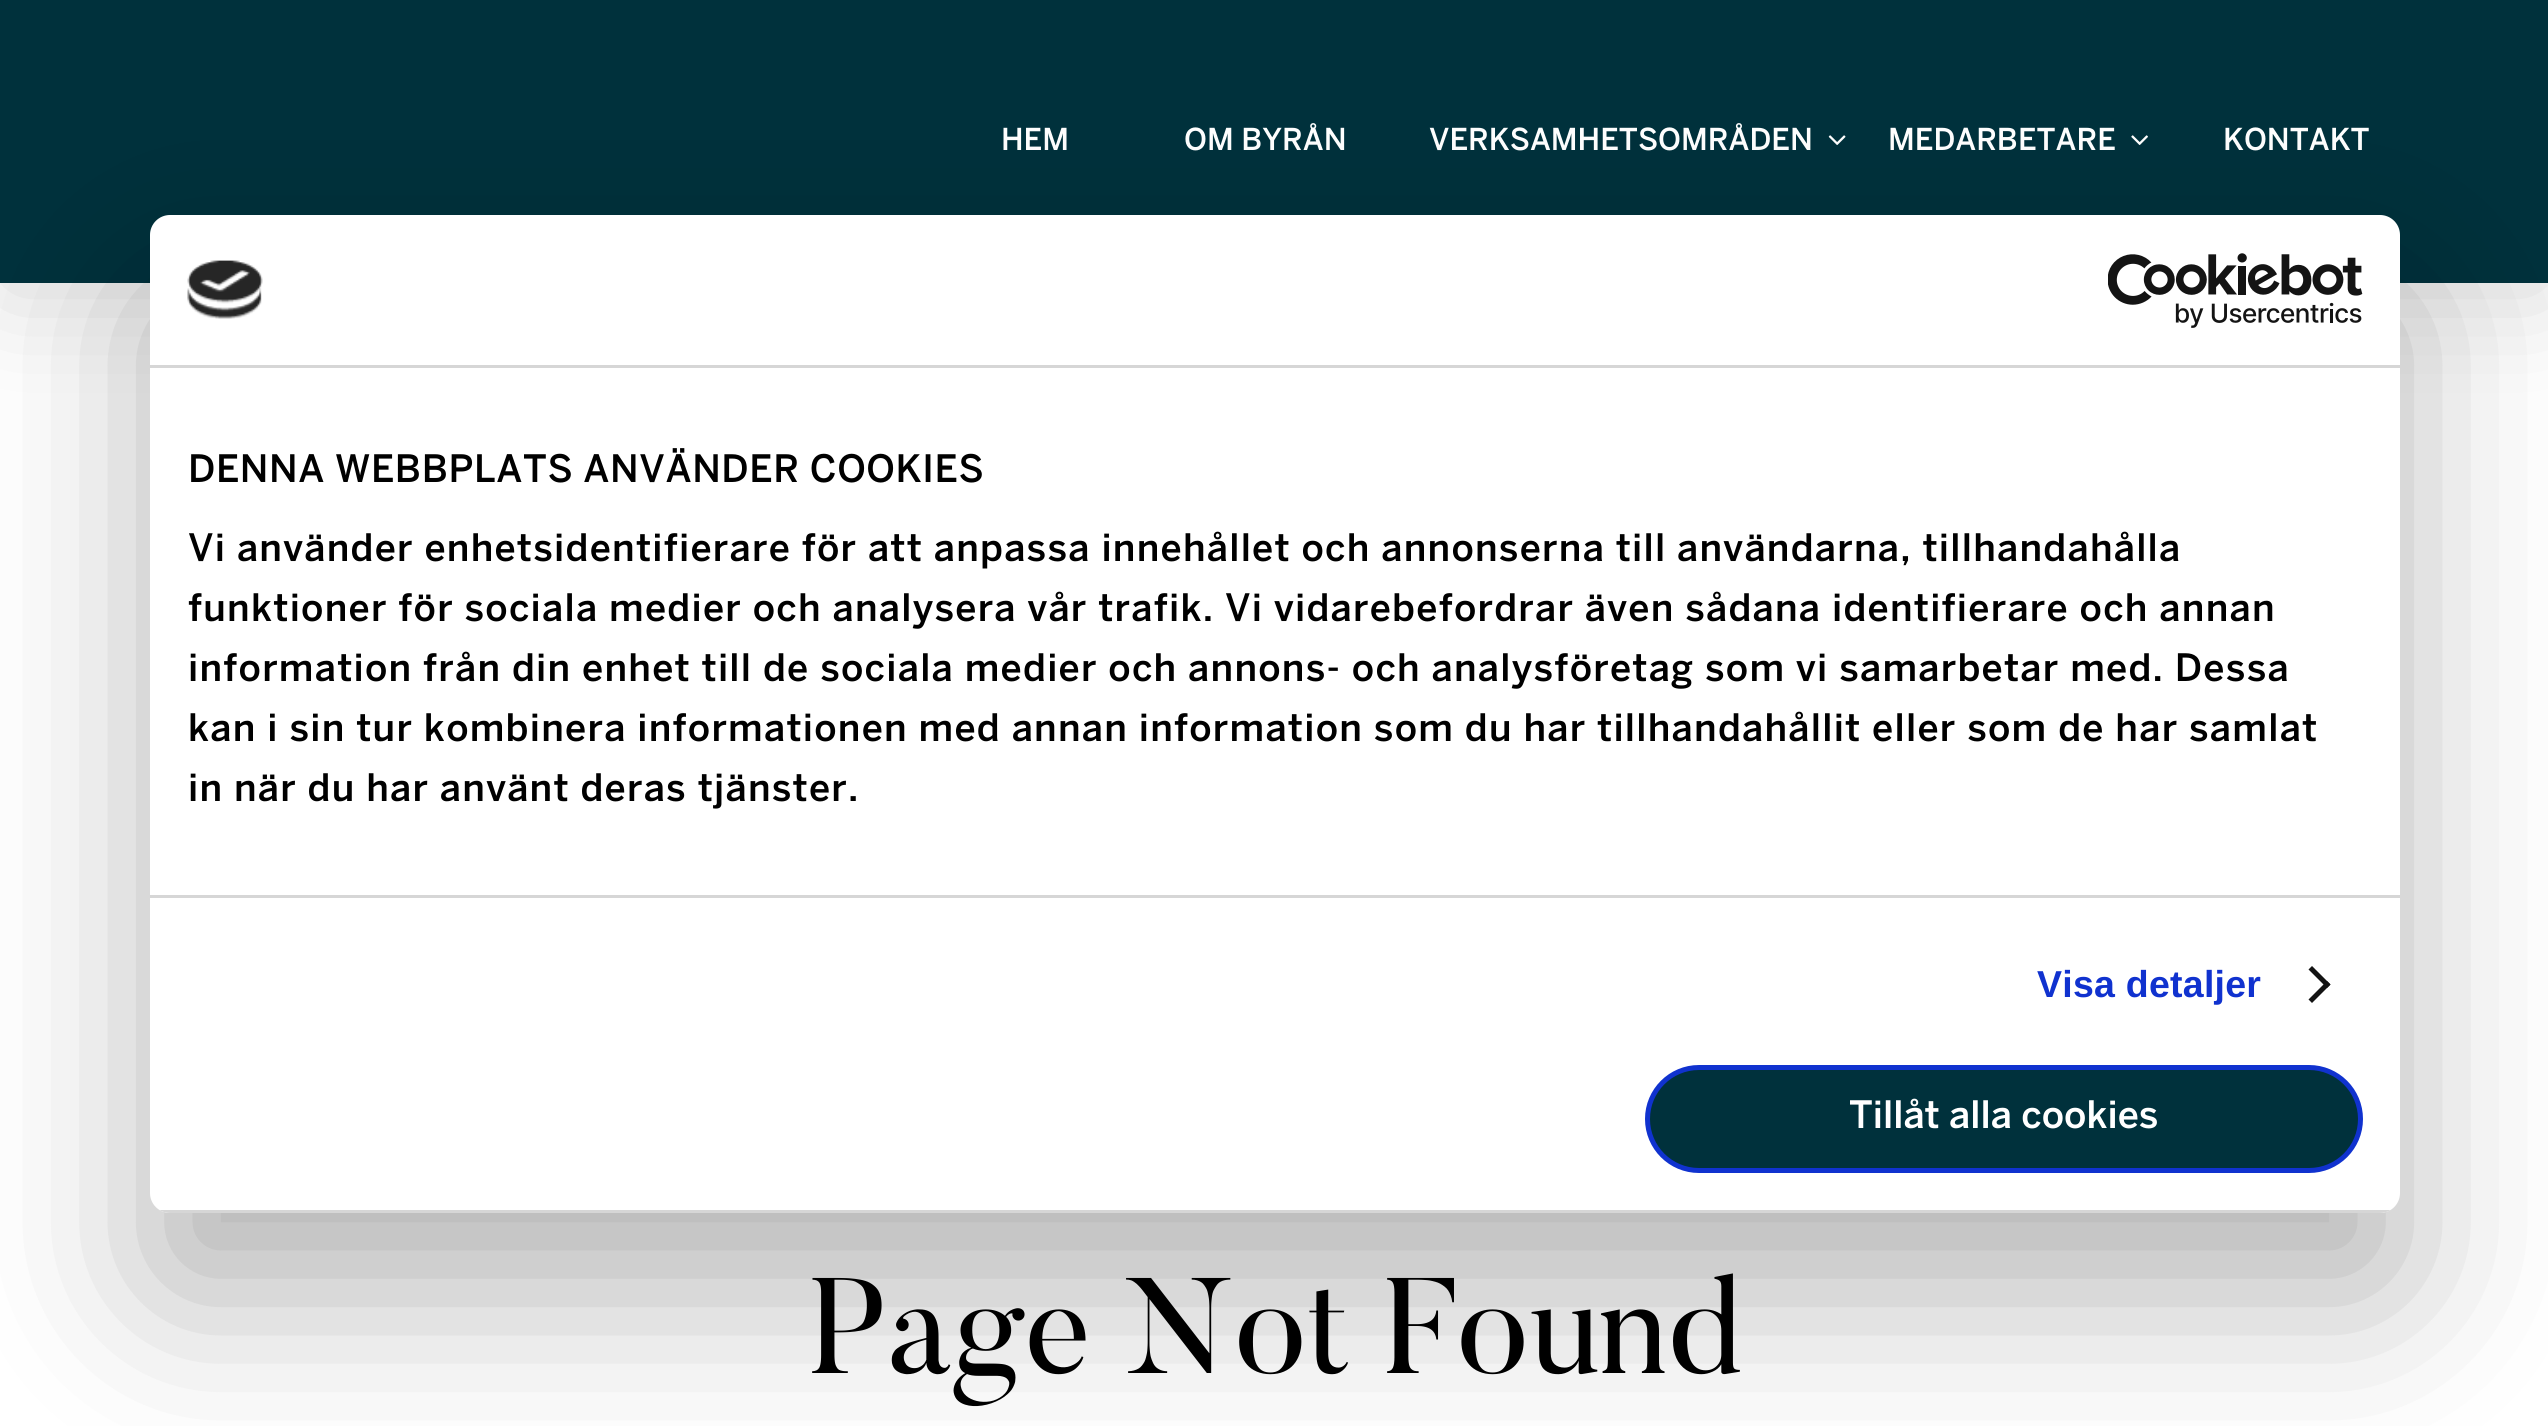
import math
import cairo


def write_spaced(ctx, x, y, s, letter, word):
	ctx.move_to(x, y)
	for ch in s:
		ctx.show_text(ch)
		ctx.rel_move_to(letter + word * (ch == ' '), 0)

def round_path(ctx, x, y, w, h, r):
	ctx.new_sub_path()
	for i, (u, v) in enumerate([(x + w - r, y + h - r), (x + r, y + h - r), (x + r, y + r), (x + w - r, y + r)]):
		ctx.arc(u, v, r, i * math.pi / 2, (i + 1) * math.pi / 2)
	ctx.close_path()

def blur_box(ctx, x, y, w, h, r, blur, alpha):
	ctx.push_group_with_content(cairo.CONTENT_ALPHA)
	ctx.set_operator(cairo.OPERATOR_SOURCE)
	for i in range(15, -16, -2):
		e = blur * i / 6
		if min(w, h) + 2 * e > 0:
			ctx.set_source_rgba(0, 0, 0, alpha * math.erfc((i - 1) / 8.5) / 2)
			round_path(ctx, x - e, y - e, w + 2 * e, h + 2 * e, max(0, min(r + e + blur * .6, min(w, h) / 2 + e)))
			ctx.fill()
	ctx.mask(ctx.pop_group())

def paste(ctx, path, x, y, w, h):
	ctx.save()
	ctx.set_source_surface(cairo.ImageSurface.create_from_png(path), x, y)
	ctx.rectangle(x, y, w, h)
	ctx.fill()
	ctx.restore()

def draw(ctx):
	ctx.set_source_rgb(1, 1, 1)
	ctx.paint()
	ctx.set_source_rgb(0, 0, 0)
	blur_box(ctx, 0, 8, 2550, 282, 0, 56, 0.15)
	ctx.set_source_rgb(0, 0.192, 0.235)
	ctx.rectangle(0, 0, 2548, 283)
	ctx.fill()
	ctx.select_font_face('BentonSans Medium')
	ctx.set_font_size(30)
	ctx.set_source_rgb(1, 1, 1)
	for x, y, s in [
		(1001, 150, 'HEM'),
		(1184, 150, 'OM BYRÅN'),
		(1429, 150, 'VERKSAMHETSOMRÅDEN'),
	]:
		ctx.move_to(x, y)
		ctx.show_text(s)
	paste(ctx, 'media/1.png', 1828, 135, 18, 10)
	ctx.move_to(1888, 150)
	ctx.show_text('MEDARBETARE')
	paste(ctx, 'media/2.png', 2131, 135, 17, 10)
	ctx.move_to(2223, 150)
	ctx.show_text('KONTAKT')
	ctx.set_source_rgb(0, 0, 0)
	blur_box(ctx, 150, 295, 2250, 998, 20, 85, 0.3)
	ctx.set_source_rgb(1, 1, 1)
	round_path(ctx, 150, 215, 2250, 998, 20)
	ctx.fill()
	ctx.set_source_rgb(0.839, 0.839, 0.839)
	ctx.rectangle(150, 365, 2250, 3)
	ctx.fill()
	paste(ctx, 'media/3.png', 187, 260, 76, 59)
	paste(ctx, 'media/4.png', 2108, 253, 255, 75)
	ctx.rectangle(150, 895, 2250, 3)
	ctx.fill()
	ctx.set_font_size(37.5)
	ctx.set_source_rgb(0, 0, 0)
	write_spaced(ctx, 188, 482, 'DENNA WEBBPLATS ANVÄNDER COOKIES', 0.6, 0)
	for x, y, s in [
		(188, 561, 'Vi använder enhetsidentifierare för att anpassa innehållet och annonserna till användarna, tillhandahålla'),
		(188, 621, 'funktioner för sociala medier och analysera vår trafik. Vi vidarebefordrar även sådana identifierare och annan'),
		(188, 681, 'information från din enhet till de sociala medier och annons- och analysföretag som vi samarbetar med. Dessa'),
		(188, 741, 'kan i sin tur kombinera informationen med annan information som du har tillhandahållit eller som de har samlat'),
		(188, 801, 'in när du har använt deras tjänster.'),
	]:
		write_spaced(ctx, x, y, s, 1.25, 0)
	ctx.select_font_face('Liberation Sans', cairo.FONT_SLANT_NORMAL, cairo.FONT_WEIGHT_BOLD)
	ctx.set_source_rgb(0.063, 0.196, 0.812)
	write_spaced(ctx, 2037, 997, 'Visa detaljer', 0.25, 0)
	ctx.set_source_rgb(0.078, 0.078, 0.078)
	ctx.new_path()
	ctx.move_to(2312, 966)
	ctx.line_to(2330.5, 984.5)
	ctx.line_to(2327, 988)
	ctx.line_to(2308.5, 969.5)
	ctx.close_path()
	ctx.fill()
	ctx.new_path()
	ctx.move_to(2327, 981)
	ctx.line_to(2330.5, 984.5)
	ctx.line_to(2312, 1003)
	ctx.line_to(2308.5, 999.5)
	ctx.close_path()
	ctx.fill()
	ctx.save()
	round_path(ctx, 150, 215, 2250, 998, 20)
	ctx.clip()
	ctx.set_source_rgb(0.839, 0.839, 0.839)
	ctx.rectangle(159, 1210, 2232, 3)
	ctx.fill()
	ctx.restore()
	ctx.set_source_rgb(0, 0.192, 0.235)
	round_path(ctx, 1647.5, 1067.5, 713, 103, 51.5)
	ctx.fill_preserve()
	ctx.set_source_rgb(0.063, 0.196, 0.812)
	ctx.set_line_width(5)
	ctx.stroke()
	ctx.select_font_face('BentonSans Medium')
	ctx.set_source_rgb(1, 1, 1)
	ctx.move_to(1849, 1128)
	ctx.show_text('Tillåt alla cookies')
	ctx.select_font_face('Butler')
	ctx.set_font_size(135)
	ctx.set_source_rgb(0, 0, 0)
	ctx.move_to(808, 1373)
	ctx.show_text('Page Not Found')


surface = cairo.ImageSurface(cairo.FORMAT_RGB24, 2548, 1426)
ctx = cairo.Context(surface)
options = cairo.FontOptions()
options.set_hint_metrics(cairo.HINT_METRICS_OFF)
options.set_hint_style(cairo.HINT_STYLE_NONE)
ctx.set_font_options(options)
ctx.set_miter_limit(4)
draw(ctx)
surface.write_to_png('image.png')
